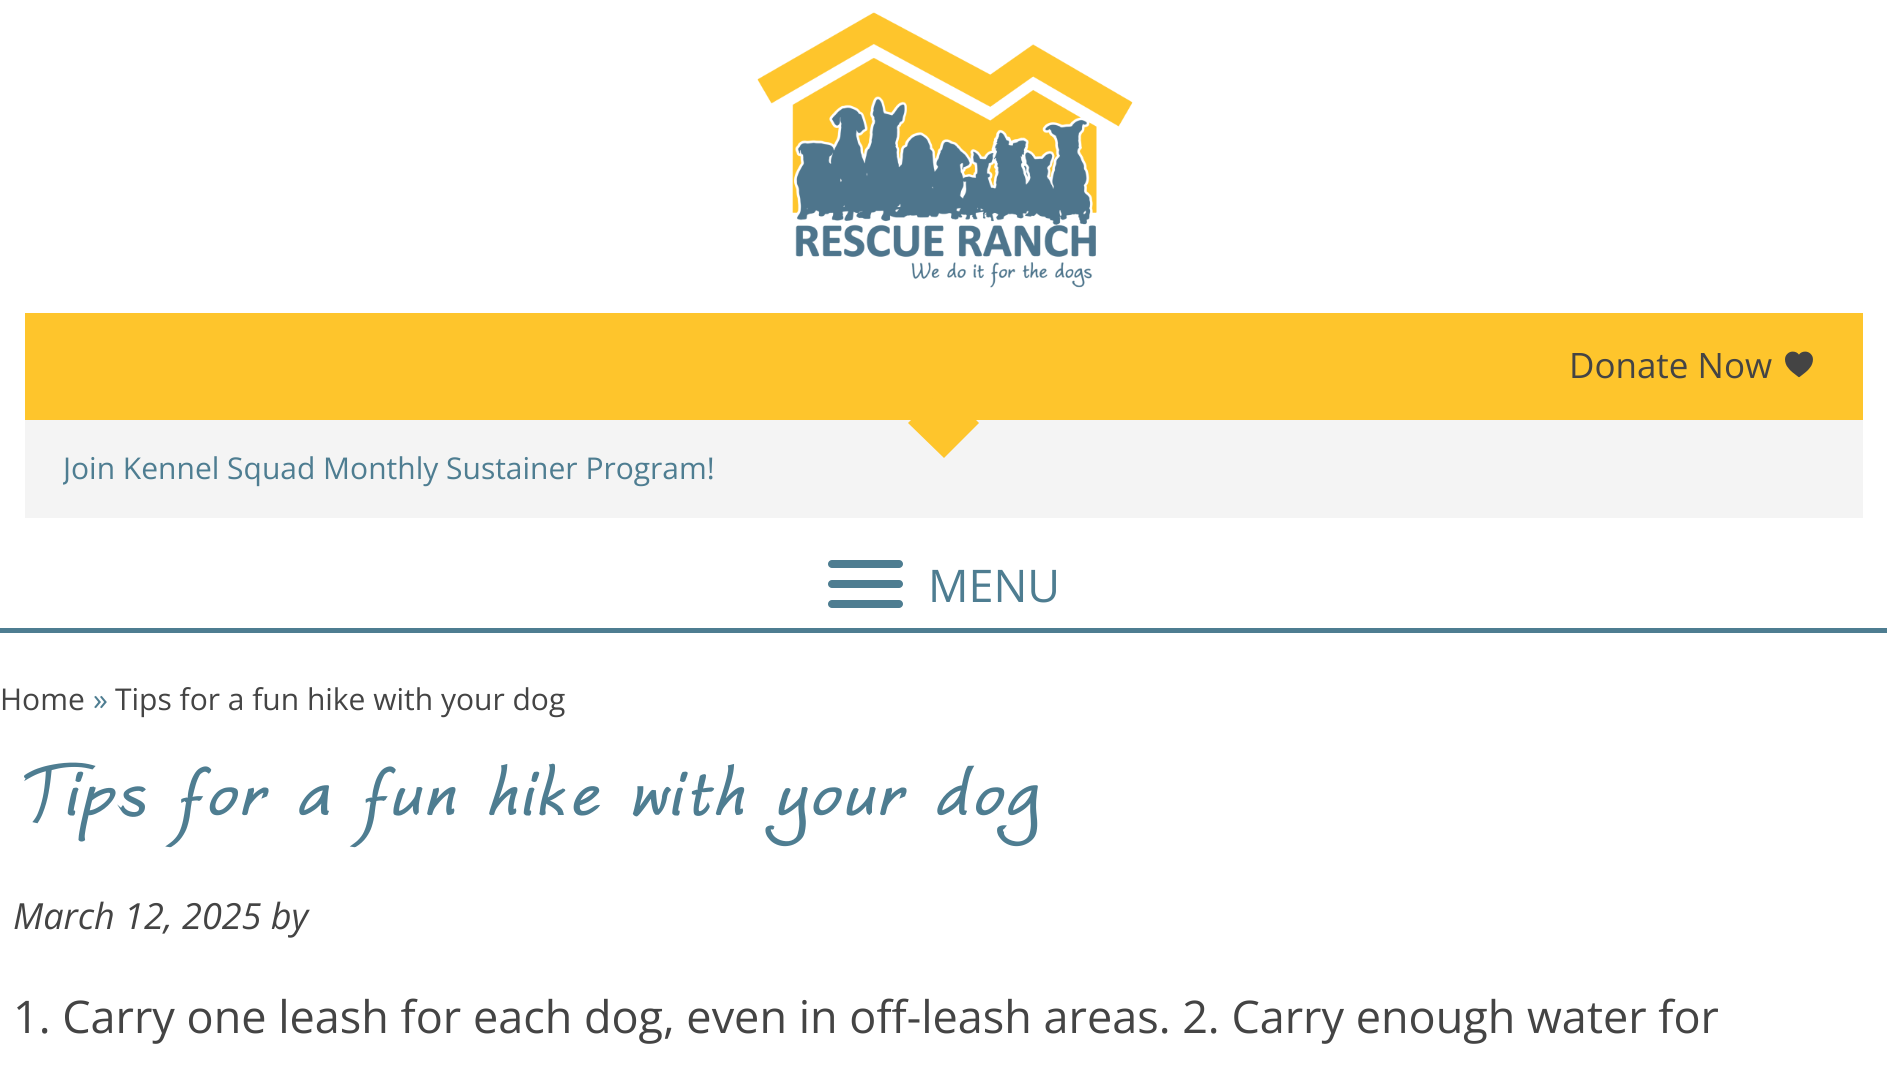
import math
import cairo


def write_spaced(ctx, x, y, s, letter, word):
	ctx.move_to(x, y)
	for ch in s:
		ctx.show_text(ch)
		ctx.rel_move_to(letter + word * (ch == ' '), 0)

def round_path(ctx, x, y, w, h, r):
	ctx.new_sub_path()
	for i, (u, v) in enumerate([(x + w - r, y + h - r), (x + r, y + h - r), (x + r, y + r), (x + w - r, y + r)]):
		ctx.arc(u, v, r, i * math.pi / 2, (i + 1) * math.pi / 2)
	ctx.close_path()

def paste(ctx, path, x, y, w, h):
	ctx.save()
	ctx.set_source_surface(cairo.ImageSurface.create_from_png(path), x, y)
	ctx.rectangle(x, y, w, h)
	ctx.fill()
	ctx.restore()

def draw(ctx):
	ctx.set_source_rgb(1, 1, 1)
	ctx.paint()
	ctx.set_source_rgb(0.306, 0.49, 0.569)
	ctx.rectangle(0, 628, 1887, 5)
	ctx.fill()
	paste(ctx, 'media/1.png', 757, 12, 376, 276)
	ctx.set_source_rgb(0.957, 0.957, 0.957)
	ctx.rectangle(25, 420, 1838, 98)
	ctx.fill()
	ctx.set_source_rgb(0.996, 0.773, 0.173)
	ctx.rectangle(25, 313, 1838, 107)
	ctx.fill()
	ctx.select_font_face('Open Sans')
	ctx.set_font_size(35)
	ctx.set_source_rgb(0.267, 0.267, 0.267)
	ctx.move_to(1569, 378)
	ctx.show_text('Donate Now')
	paste(ctx, 'media/2.png', 1785, 351, 28, 27)
	ctx.set_source_rgb(0.996, 0.773, 0.173)
	ctx.new_path()
	ctx.move_to(944, 388)
	ctx.line_to(979, 423)
	ctx.line_to(944, 458)
	ctx.line_to(908, 423)
	ctx.close_path()
	ctx.fill()
	ctx.new_path()
	ctx.move_to(908.5, 423)
	ctx.line_to(944, 387.5)
	ctx.line_to(944, 423)
	ctx.close_path()
	ctx.fill()
	ctx.save()
	ctx.rectangle(63, 445, 1762, 48)
	ctx.clip()
	ctx.set_font_size(30)
	ctx.set_source_rgb(0.306, 0.49, 0.569)
	ctx.move_to(63, 479)
	ctx.show_text('Join Kennel Squad Monthly Sustainer Program!')
	ctx.restore()
	ctx.set_source_rgb(0.306, 0.49, 0.569)
	round_path(ctx, 828, 580, 75, 8, 4)
	ctx.fill()
	round_path(ctx, 828, 560, 75, 8, 4)
	ctx.fill()
	round_path(ctx, 828, 600, 75, 8, 4)
	ctx.fill()
	ctx.set_font_size(45)
	ctx.move_to(928, 602)
	ctx.show_text('MENU')
	ctx.set_font_size(30)
	ctx.set_source_rgb(0.267, 0.267, 0.267)
	ctx.move_to(0, 710)
	ctx.show_text('Home')
	ctx.set_source_rgb(0.306, 0.49, 0.569)
	ctx.move_to(93, 710)
	ctx.show_text('»')
	ctx.set_source_rgb(0.267, 0.267, 0.267)
	ctx.move_to(115, 710)
	ctx.show_text('Tips for a fun hike with your dog')
	ctx.select_font_face('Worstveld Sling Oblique', cairo.FONT_SLANT_NORMAL, cairo.FONT_WEIGHT_BOLD)
	ctx.set_font_size(90)
	ctx.set_source_rgb(0.306, 0.49, 0.569)
	write_spaced(ctx, 13, 815, 'Tips for a fun hike with your dog', 5, 0)
	ctx.select_font_face('Open Sans', cairo.FONT_SLANT_ITALIC)
	ctx.set_font_size(36)
	ctx.set_source_rgb(0.267, 0.267, 0.267)
	ctx.move_to(13, 929)
	ctx.show_text('March 12, 2025 by')
	ctx.select_font_face('Open Sans')
	ctx.set_font_size(45)
	ctx.move_to(13, 1033)
	ctx.show_text('1. Carry one leash for each dog, even in off-leash areas. 2. Carry enough water for')


surface = cairo.ImageSurface(cairo.FORMAT_RGB24, 1887, 1066)
ctx = cairo.Context(surface)
options = cairo.FontOptions()
options.set_hint_metrics(cairo.HINT_METRICS_OFF)
options.set_hint_style(cairo.HINT_STYLE_NONE)
ctx.set_font_options(options)
ctx.set_miter_limit(4)
draw(ctx)
surface.write_to_png('image.png')
